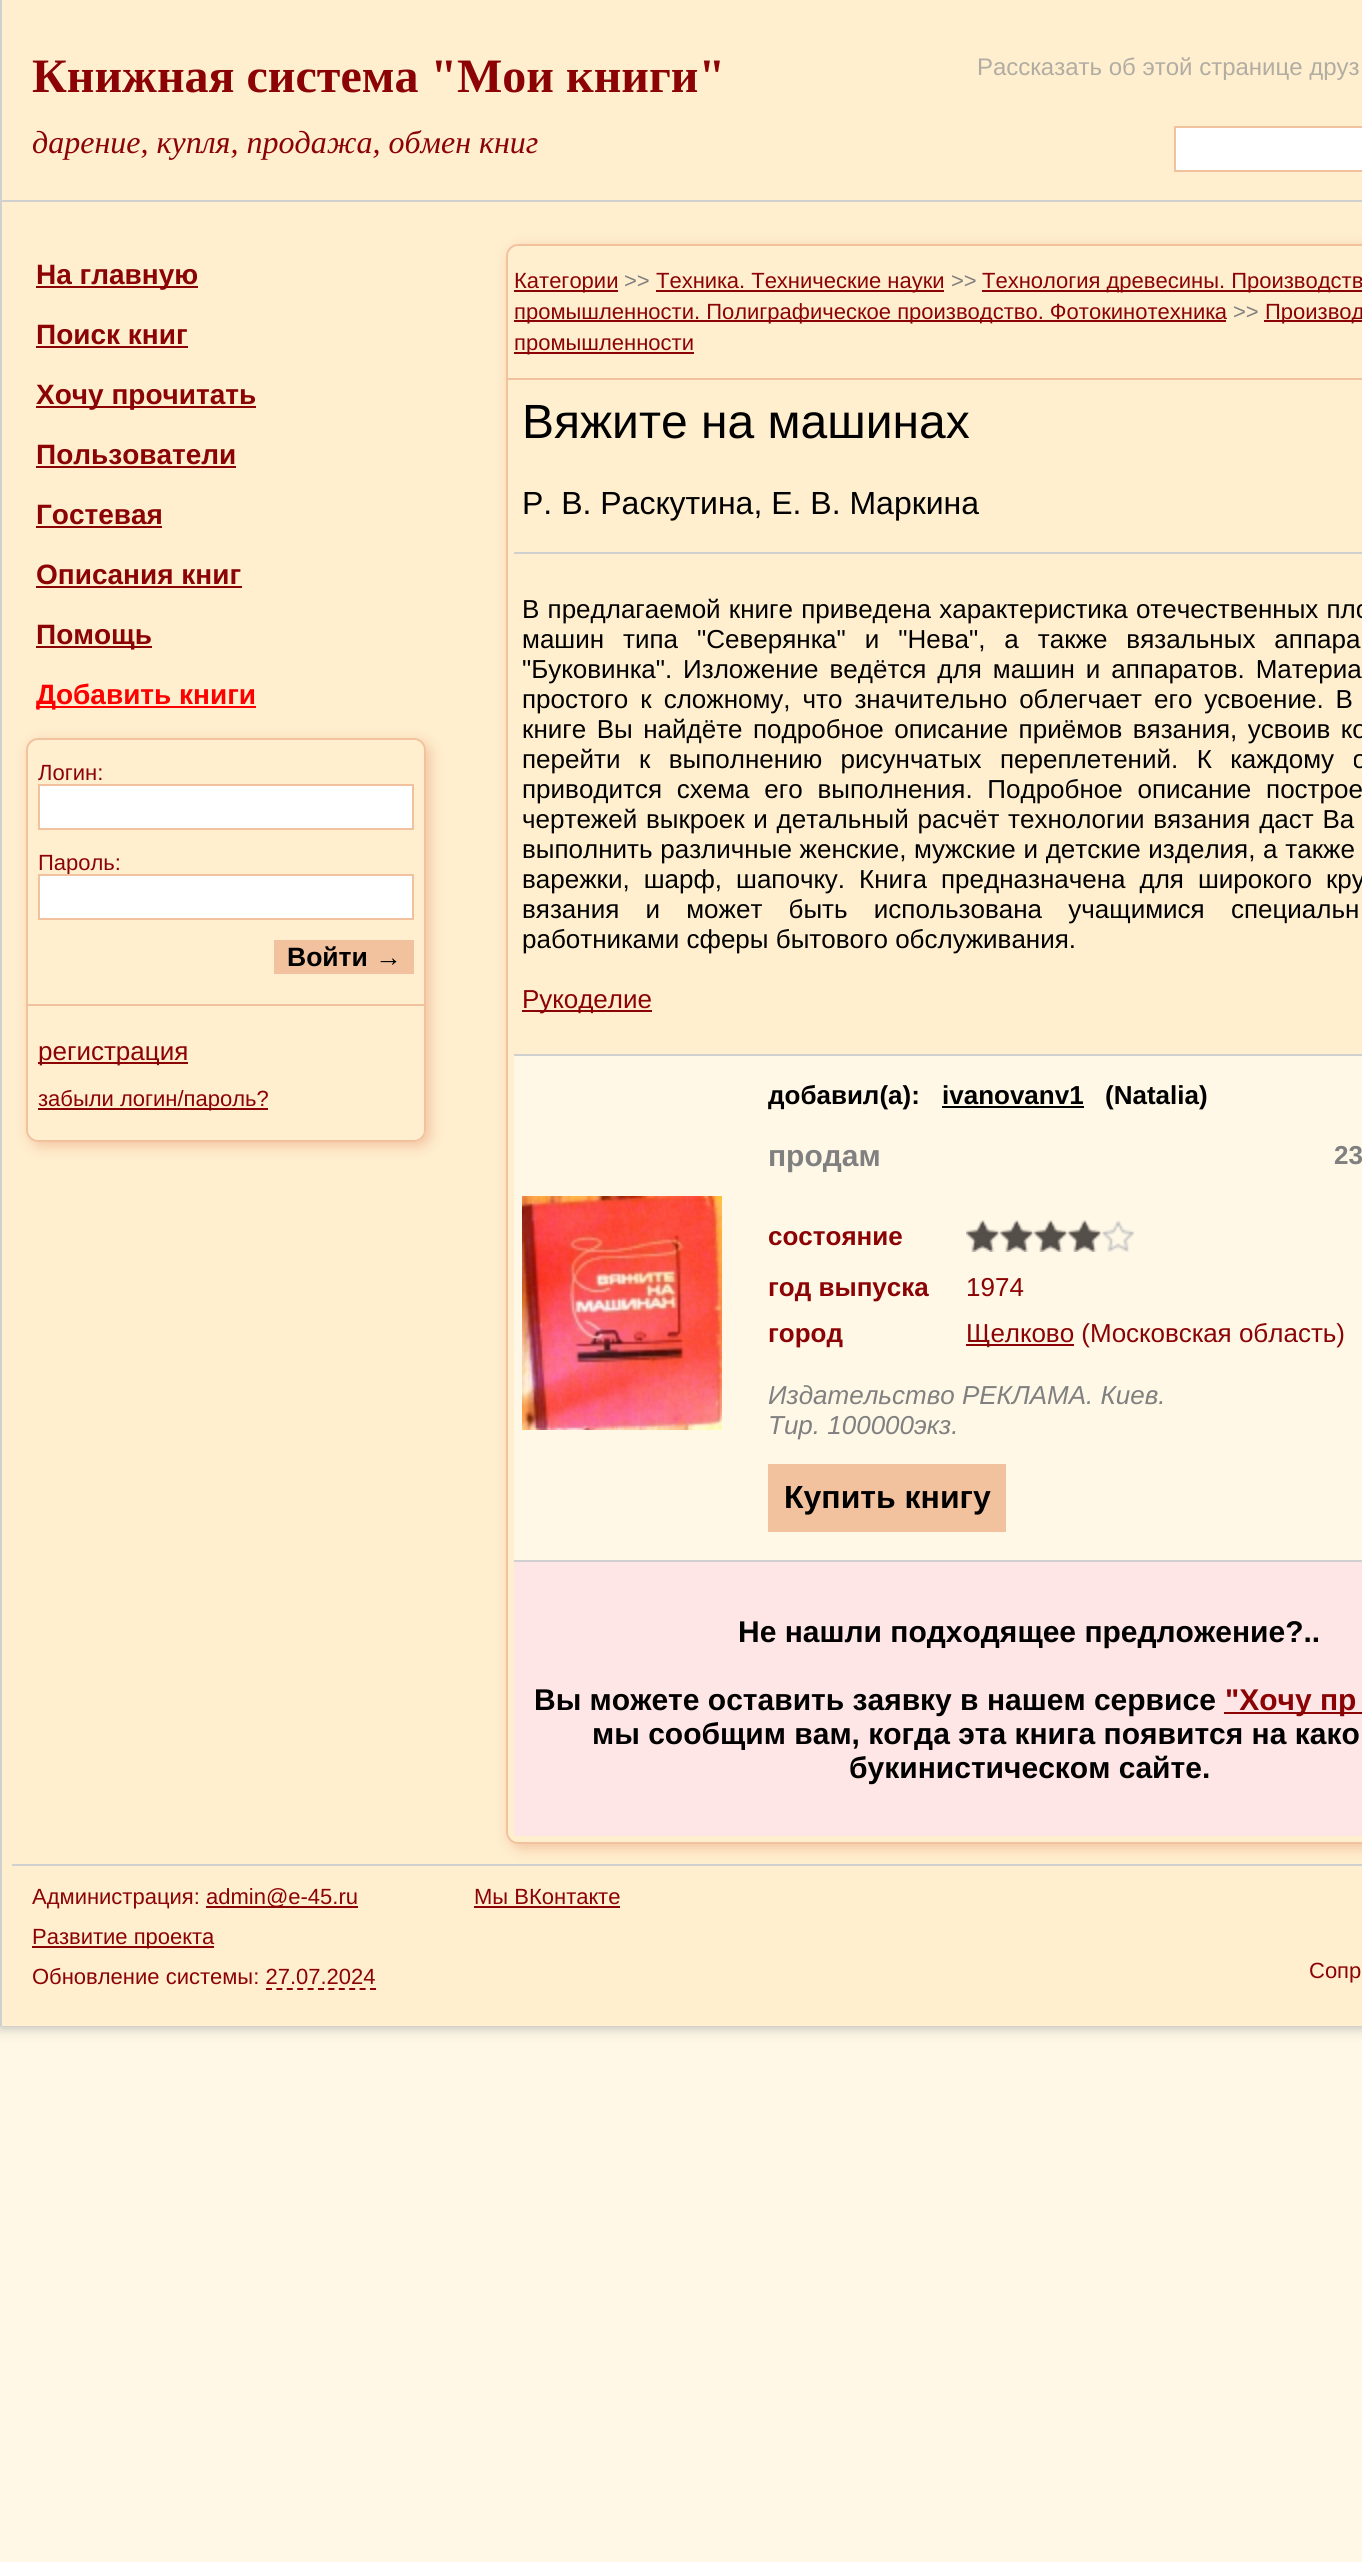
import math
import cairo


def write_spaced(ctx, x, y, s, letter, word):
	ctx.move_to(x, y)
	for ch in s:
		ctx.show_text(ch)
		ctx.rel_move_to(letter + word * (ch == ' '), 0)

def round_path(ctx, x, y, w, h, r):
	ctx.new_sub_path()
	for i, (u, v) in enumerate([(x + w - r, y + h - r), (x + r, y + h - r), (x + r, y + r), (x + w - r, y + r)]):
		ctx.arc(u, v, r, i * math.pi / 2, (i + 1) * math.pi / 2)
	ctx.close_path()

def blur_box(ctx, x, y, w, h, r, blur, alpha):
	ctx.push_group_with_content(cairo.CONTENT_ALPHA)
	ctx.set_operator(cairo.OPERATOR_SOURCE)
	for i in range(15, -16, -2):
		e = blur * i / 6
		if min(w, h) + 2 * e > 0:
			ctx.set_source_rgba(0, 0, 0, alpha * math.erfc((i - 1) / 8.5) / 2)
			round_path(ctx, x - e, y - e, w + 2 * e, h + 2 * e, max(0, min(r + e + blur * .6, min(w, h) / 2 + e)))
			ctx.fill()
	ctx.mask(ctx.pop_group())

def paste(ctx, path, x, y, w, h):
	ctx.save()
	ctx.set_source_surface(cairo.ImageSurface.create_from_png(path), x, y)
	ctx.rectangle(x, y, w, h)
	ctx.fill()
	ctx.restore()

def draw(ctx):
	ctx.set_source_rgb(1, 0.969, 0.902)
	ctx.paint()
	ctx.set_source_rgb(0.667, 0.667, 0.667)
	blur_box(ctx, 0, 0, 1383, 2026, 0, 7, 1)
	ctx.set_source_rgb(1, 0.937, 0.812)
	ctx.rectangle(2, 0, 1360, 2026)
	ctx.fill()
	ctx.set_source_rgb(0.816, 0.816, 0.816)
	ctx.rectangle(0, 0, 2, 2026)
	ctx.rectangle(2, 200, 1360, 2)
	ctx.fill()
	ctx.select_font_face('Liberation Serif', cairo.FONT_SLANT_NORMAL, cairo.FONT_WEIGHT_BOLD)
	ctx.set_font_size(48)
	ctx.set_source_rgb(0.545, 0.012, 0.016)
	ctx.move_to(32, 92)
	ctx.show_text('Книжная система "Мои книги"')
	ctx.select_font_face('Liberation Sans')
	ctx.set_font_size(24)
	ctx.set_source_rgb(0.694, 0.678, 0.639)
	ctx.move_to(977, 75)
	ctx.show_text('Рассказать об этой странице друз')
	ctx.select_font_face('Liberation Serif', cairo.FONT_SLANT_ITALIC)
	ctx.set_font_size(32)
	ctx.set_source_rgb(0.545, 0.012, 0.016)
	ctx.move_to(32, 153)
	ctx.show_text('дарение, купля, продажа, обмен книг')
	ctx.set_source_rgb(1, 1, 1)
	ctx.rectangle(1175, 127, 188, 44)
	ctx.fill_preserve()
	ctx.set_source_rgb(0.949, 0.761, 0.624)
	ctx.stroke()
	ctx.set_source_rgb(0.545, 0.012, 0.016)
	ctx.rectangle(36, 286, 162, 2)
	ctx.fill()
	ctx.select_font_face('Liberation Sans', cairo.FONT_SLANT_NORMAL, cairo.FONT_WEIGHT_BOLD)
	ctx.set_font_size(28)
	ctx.move_to(36, 284)
	ctx.show_text('На главную')
	ctx.move_to(36, 344)
	ctx.show_text('Поиск книг')
	ctx.rectangle(36, 346, 152, 2)
	ctx.fill()
	ctx.rectangle(36, 406, 220, 2)
	ctx.fill()
	ctx.move_to(36, 404)
	ctx.show_text('Хочу прочитать')
	ctx.move_to(36, 464)
	ctx.show_text('Пользователи')
	ctx.rectangle(36, 466, 200, 2)
	ctx.fill()
	ctx.move_to(36, 524)
	ctx.show_text('Гостевая')
	ctx.rectangle(36, 526, 126, 2)
	ctx.fill()
	ctx.move_to(36, 584)
	ctx.show_text('Описания книг')
	ctx.rectangle(36, 586, 206, 2)
	ctx.fill()
	ctx.rectangle(36, 646, 116, 2)
	ctx.fill()
	ctx.move_to(36, 644)
	ctx.show_text('Помощь')
	ctx.set_source_rgb(1, 0, 0)
	ctx.rectangle(36, 706, 220, 2)
	ctx.fill()
	ctx.move_to(36, 704)
	ctx.show_text('Добавить книги')
	ctx.save()
	ctx.set_fill_rule(cairo.FILL_RULE_EVEN_ODD)
	ctx.new_path()
	ctx.move_to(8, 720)
	ctx.line_to(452, 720)
	ctx.line_to(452, 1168)
	ctx.line_to(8, 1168)
	ctx.close_path()
	ctx.move_to(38, 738)
	ctx.line_to(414, 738)
	ctx.curve_to(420.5, 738, 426, 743.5, 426, 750)
	ctx.line_to(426, 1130)
	ctx.curve_to(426, 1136.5, 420.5, 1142, 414, 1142)
	ctx.line_to(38, 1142)
	ctx.curve_to(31.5, 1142, 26, 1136.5, 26, 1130)
	ctx.line_to(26, 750)
	ctx.curve_to(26, 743.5, 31.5, 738, 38, 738)
	ctx.close_path()
	ctx.clip()
	ctx.set_source_rgb(0.949, 0.761, 0.624)
	blur_box(ctx, 30, 742, 400, 404, 12, 7, 1)
	ctx.restore()
	round_path(ctx, 27, 739, 398, 402, 11)
	ctx.set_source_rgb(0.949, 0.761, 0.624)
	ctx.stroke()
	ctx.select_font_face('Liberation Sans')
	ctx.set_font_size(22)
	ctx.set_source_rgb(0.545, 0.012, 0.016)
	ctx.move_to(38, 780)
	ctx.show_text('Логин:')
	ctx.set_source_rgb(1, 1, 1)
	ctx.rectangle(39, 785, 374, 44)
	ctx.fill_preserve()
	ctx.set_source_rgb(0.949, 0.761, 0.624)
	ctx.stroke()
	ctx.set_source_rgb(0.545, 0.012, 0.016)
	ctx.move_to(38, 870)
	ctx.show_text('Пароль:')
	ctx.set_source_rgb(1, 1, 1)
	ctx.rectangle(39, 875, 374, 44)
	ctx.fill_preserve()
	ctx.set_source_rgb(0.949, 0.761, 0.624)
	ctx.stroke()
	ctx.rectangle(274, 940, 140, 34)
	ctx.fill()
	ctx.select_font_face('Liberation Sans', cairo.FONT_SLANT_NORMAL, cairo.FONT_WEIGHT_BOLD)
	ctx.set_font_size(26.5)
	ctx.set_source_rgb(0, 0, 0)
	ctx.move_to(287, 966)
	ctx.show_text('Войти →')
	ctx.set_source_rgb(0.949, 0.761, 0.624)
	ctx.rectangle(28, 1004, 396, 2)
	ctx.fill()
	ctx.set_source_rgb(0.545, 0.012, 0.016)
	ctx.rectangle(38, 1062, 150, 2)
	ctx.fill()
	ctx.select_font_face('Liberation Sans')
	ctx.set_font_size(26)
	ctx.move_to(38, 1060)
	ctx.show_text('регистрация')
	ctx.rectangle(38, 1108, 230, 2)
	ctx.fill()
	ctx.set_font_size(22)
	ctx.move_to(38, 1106)
	ctx.show_text('забыли логин/пароль?')
	ctx.save()
	ctx.set_fill_rule(cairo.FILL_RULE_EVEN_ODD)
	ctx.new_path()
	ctx.move_to(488, 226)
	ctx.line_to(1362, 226)
	ctx.line_to(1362, 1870)
	ctx.line_to(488, 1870)
	ctx.close_path()
	ctx.move_to(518, 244)
	ctx.line_to(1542, 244)
	ctx.curve_to(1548.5, 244, 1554, 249.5, 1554, 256)
	ctx.line_to(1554, 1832)
	ctx.curve_to(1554, 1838.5, 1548.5, 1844, 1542, 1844)
	ctx.line_to(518, 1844)
	ctx.curve_to(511.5, 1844, 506, 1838.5, 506, 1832)
	ctx.line_to(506, 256)
	ctx.curve_to(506, 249.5, 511.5, 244, 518, 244)
	ctx.close_path()
	ctx.clip()
	ctx.set_source_rgb(0.949, 0.761, 0.624)
	blur_box(ctx, 510, 248, 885, 1600, 12, 7, 1)
	ctx.restore()
	round_path(ctx, 507, 245, 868, 1598, 11)
	ctx.set_source_rgb(0.949, 0.761, 0.624)
	ctx.stroke()
	ctx.rectangle(508, 378, 854, 2)
	ctx.fill()
	ctx.set_source_rgb(0.545, 0.012, 0.016)
	ctx.rectangle(514, 290, 104, 2)
	ctx.fill()
	ctx.move_to(514, 288)
	ctx.show_text('Категории')
	ctx.set_source_rgb(0.502, 0.502, 0.502)
	ctx.move_to(624, 288)
	ctx.show_text('>>')
	ctx.set_source_rgb(0.545, 0.012, 0.016)
	ctx.rectangle(656, 290, 288, 2)
	ctx.fill()
	ctx.move_to(656, 288)
	ctx.show_text('Техника. Технические науки')
	ctx.set_source_rgb(0.502, 0.502, 0.502)
	ctx.move_to(951, 288)
	ctx.show_text('>>')
	ctx.set_source_rgb(0.545, 0.012, 0.016)
	ctx.rectangle(982, 290, 380, 2)
	ctx.fill()
	ctx.move_to(982, 288)
	ctx.show_text('Технология древесины. Производств')
	ctx.rectangle(514, 320, 712, 2)
	ctx.fill()
	ctx.move_to(514, 319)
	ctx.show_text('промышленности. Полиграфическое производство. Фотокинотехника')
	ctx.set_source_rgb(0.502, 0.502, 0.502)
	ctx.move_to(1233, 319)
	ctx.show_text('>>')
	ctx.set_source_rgb(0.545, 0.012, 0.016)
	ctx.rectangle(1264, 320, 98, 2)
	ctx.fill()
	ctx.move_to(1265, 319)
	ctx.show_text('Производ')
	ctx.rectangle(514, 352, 180, 2)
	ctx.fill()
	ctx.move_to(514, 350)
	ctx.show_text('промышленности')
	ctx.set_source_rgb(0.816, 0.816, 0.816)
	ctx.rectangle(514, 552, 848, 2)
	ctx.fill()
	ctx.set_font_size(48)
	ctx.set_source_rgb(0, 0, 0)
	ctx.move_to(522, 438)
	ctx.show_text('Вяжите на машинах')
	ctx.set_font_size(32)
	ctx.move_to(522, 514)
	ctx.show_text('Р. В. Раскутина, Е. В. Маркина')
	ctx.set_source_rgb(0.816, 0.816, 0.816)
	ctx.rectangle(514, 1054, 848, 2)
	ctx.fill()
	ctx.set_font_size(26)
	ctx.set_source_rgb(0, 0, 0)
	write_spaced(ctx, 522, 618, 'В предлагаемой книге приведена характеристика отечественных пло', 0, 1)
	write_spaced(ctx, 522, 648, 'машин типа "Северянка" и "Нева", а также вязальных аппара', 0, 11.75)
	write_spaced(ctx, 522, 678, '"Буковинка". Изложение ведётся для машин и аппаратов. Материа', 0, 3.75)
	write_spaced(ctx, 522, 708, 'простого к сложному, что значительно облегчает его усвоение. В', 0, 4.75)
	write_spaced(ctx, 522, 738, 'книге Вы найдёте подробное описание приёмов вязания, усвоив ко', 0, 3.25)
	write_spaced(ctx, 522, 768, 'перейти к выполнению рисунчатых переплетений. К каждому о', 0, 11.25)
	write_spaced(ctx, 522, 798, 'приводится схема его выполнения. Подробное описание построе', 0, 7.5)
	write_spaced(ctx, 522, 828, 'чертежей выкроек и детальный расчёт технологии вязания даст Ва', 0, 1.5)
	write_spaced(ctx, 522, 858, 'выполнить различные женские, мужские и детские изделия, а также', 0, 0.5)
	write_spaced(ctx, 522, 888, 'варежки, шарф, шапочку. Книга предназначена для широкого кру', 0, 6.75)
	write_spaced(ctx, 522, 918, 'вязания и может быть использована учащимися специальн', 0, 19)
	ctx.move_to(522, 948)
	ctx.show_text('работниками сферы бытового обслуживания.')
	ctx.set_source_rgb(0.545, 0.012, 0.016)
	ctx.rectangle(522, 1010, 130, 2)
	ctx.fill()
	ctx.move_to(522, 1008)
	ctx.show_text('Рукоделие')
	ctx.set_source_rgb(1, 0.969, 0.902)
	ctx.rectangle(514, 1056, 848, 504)
	ctx.fill()
	ctx.select_font_face('Liberation Sans', cairo.FONT_SLANT_NORMAL, cairo.FONT_WEIGHT_BOLD)
	ctx.set_source_rgb(0, 0, 0)
	ctx.move_to(768, 1104)
	ctx.show_text('добавил(a):')
	ctx.move_to(942, 1104)
	ctx.show_text('ivanovanv1')
	ctx.rectangle(942, 1106, 142, 2)
	ctx.fill()
	ctx.move_to(1105, 1104)
	ctx.show_text('(Natalia)')
	ctx.set_font_size(30)
	ctx.set_source_rgb(0.502, 0.502, 0.502)
	ctx.move_to(768, 1166)
	ctx.show_text('продам')
	ctx.set_font_size(26)
	ctx.move_to(1334, 1164)
	ctx.show_text('23')
	ctx.set_source_rgb(0.545, 0.012, 0.016)
	ctx.move_to(768, 1245)
	ctx.show_text('состояние')
	paste(ctx, 'media/1.png', 966, 1220, 168, 32)
	ctx.move_to(768, 1296)
	ctx.show_text('год выпуска')
	ctx.select_font_face('Liberation Sans')
	ctx.move_to(966, 1296)
	ctx.show_text('1974')
	ctx.select_font_face('Liberation Sans', cairo.FONT_SLANT_NORMAL, cairo.FONT_WEIGHT_BOLD)
	ctx.move_to(768, 1342)
	ctx.show_text('город')
	ctx.rectangle(966, 1344, 108, 2)
	ctx.fill()
	ctx.select_font_face('Liberation Sans')
	ctx.move_to(966, 1342)
	ctx.show_text('Щелково (Московская область)')
	ctx.select_font_face('Liberation Sans', cairo.FONT_SLANT_ITALIC)
	ctx.set_source_rgb(0.502, 0.502, 0.502)
	ctx.move_to(768, 1404)
	ctx.show_text('Издательство РЕКЛАМА. Киев.')
	ctx.move_to(768, 1434)
	ctx.show_text('Тир. 100000экз.')
	ctx.set_source_rgb(0.949, 0.761, 0.624)
	ctx.rectangle(768, 1464, 238, 68)
	ctx.fill()
	ctx.select_font_face('Liberation Sans', cairo.FONT_SLANT_NORMAL, cairo.FONT_WEIGHT_BOLD)
	ctx.set_font_size(32)
	ctx.set_source_rgb(0, 0, 0)
	ctx.move_to(784, 1508)
	ctx.show_text('Купить книгу')
	ctx.set_source_rgb(0.816, 0.816, 0.816)
	ctx.rectangle(514, 1560, 848, 2)
	ctx.fill()
	paste(ctx, 'media/2.png', 522, 1196, 200, 234)
	ctx.set_source_rgb(1, 0.902, 0.902)
	ctx.rectangle(514, 1562, 848, 274)
	ctx.fill()
	ctx.set_font_size(30)
	ctx.set_source_rgb(0, 0, 0)
	ctx.move_to(738, 1642)
	ctx.show_text('Не нашли подходящее предложение?..')
	ctx.move_to(534, 1710)
	ctx.show_text('Вы можете оставить заявку в нашем сервисе')
	ctx.set_source_rgb(0.545, 0.012, 0.016)
	ctx.rectangle(1224, 1712, 138, 2)
	ctx.fill()
	ctx.move_to(1225, 1710)
	ctx.show_text('"Хочу пр')
	ctx.set_source_rgb(0, 0, 0)
	ctx.move_to(592, 1744)
	ctx.show_text('мы сообщим вам, когда эта книга появится на како')
	ctx.move_to(849, 1778)
	ctx.show_text('букинистическом сайте.')
	ctx.set_source_rgb(0.816, 0.816, 0.816)
	ctx.rectangle(12, 1864, 1350, 2)
	ctx.fill()
	ctx.select_font_face('Liberation Sans')
	ctx.set_font_size(22)
	ctx.set_source_rgb(0.545, 0.012, 0.016)
	ctx.move_to(32, 1904)
	ctx.show_text('Администрация:')
	ctx.rectangle(206, 1906, 152, 2)
	ctx.fill()
	ctx.move_to(206, 1904)
	ctx.show_text('admin@e-45.ru')
	ctx.rectangle(32, 1946, 182, 2)
	ctx.fill()
	ctx.move_to(32, 1944)
	ctx.show_text('Развитие проекта')
	ctx.move_to(32, 1984)
	ctx.show_text('Обновление системы: 27.07.2024')
	ctx.new_path()
	ctx.move_to(266, 1989)
	ctx.line_to(376, 1989)
	ctx.set_dash([6, 4.4])
	ctx.stroke()
	ctx.move_to(474, 1904)
	ctx.show_text('Мы ВКонтакте')
	ctx.rectangle(474, 1906, 146, 2)
	ctx.fill()
	ctx.move_to(1309, 1978)
	ctx.show_text('Сопр')


surface = cairo.ImageSurface(cairo.FORMAT_RGB24, 1362, 2562)
ctx = cairo.Context(surface)
options = cairo.FontOptions()
options.set_hint_metrics(cairo.HINT_METRICS_OFF)
options.set_hint_style(cairo.HINT_STYLE_NONE)
ctx.set_font_options(options)
ctx.set_miter_limit(4)
draw(ctx)
surface.write_to_png('image.png')
